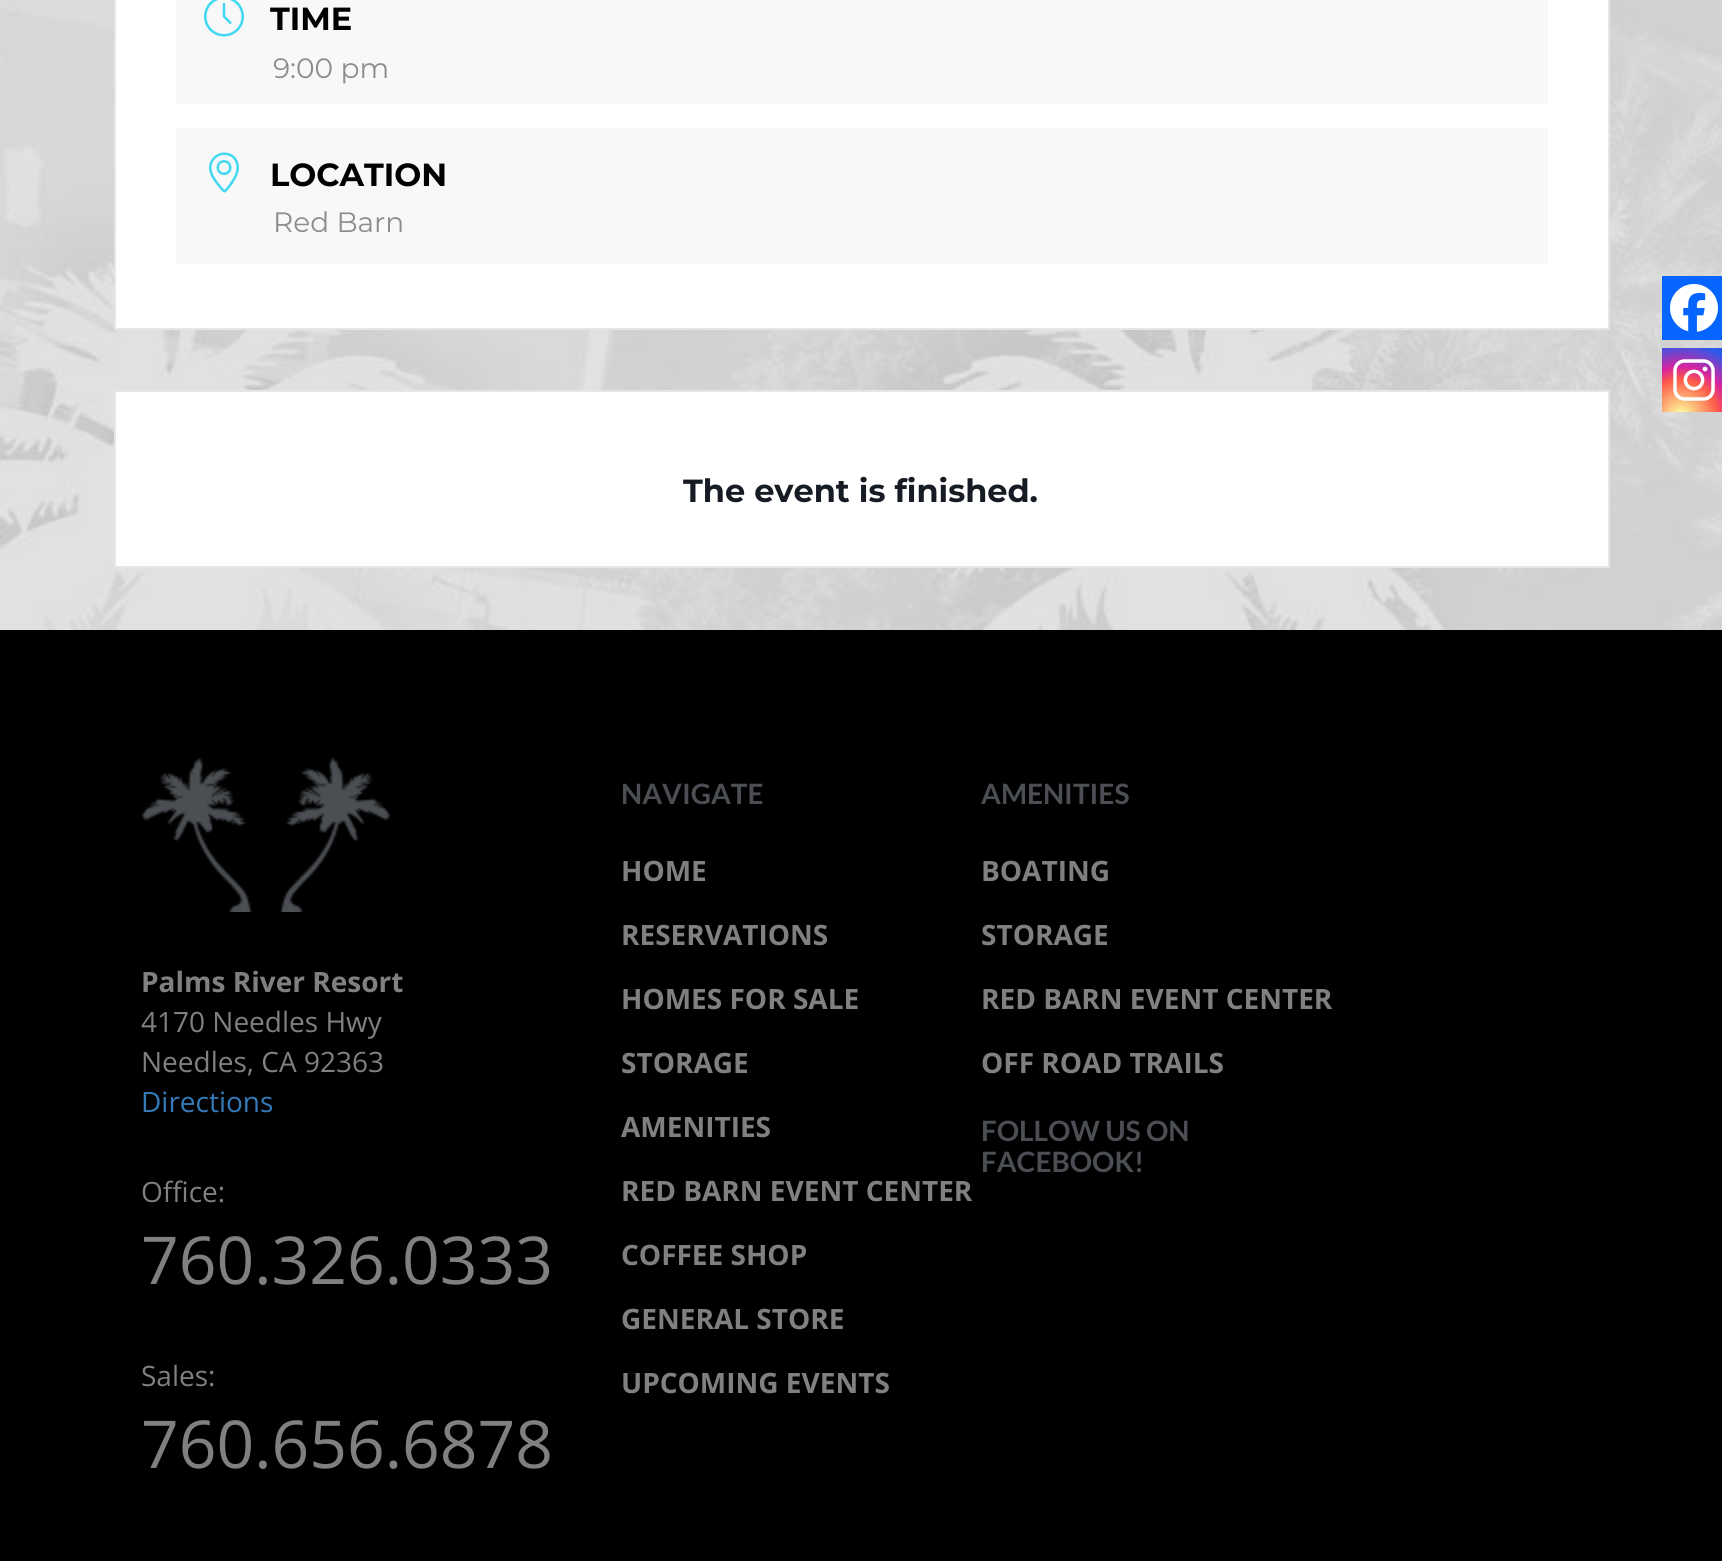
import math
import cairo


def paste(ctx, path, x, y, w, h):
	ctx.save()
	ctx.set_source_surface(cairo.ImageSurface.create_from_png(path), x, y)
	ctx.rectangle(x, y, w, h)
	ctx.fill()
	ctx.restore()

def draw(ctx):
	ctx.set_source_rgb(1, 1, 1)
	ctx.paint()
	paste(ctx, 'media/1.png', 0, 0, 1722, 630)
	ctx.set_source_rgb(1, 1, 1)
	ctx.rectangle(115, -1, 1494, 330)
	ctx.fill_preserve()
	ctx.set_source_rgb(0.902, 0.902, 0.902)
	ctx.stroke()
	ctx.set_source_rgb(0.969, 0.969, 0.969)
	ctx.rectangle(176, 0, 1372, 104)
	ctx.fill()
	paste(ctx, 'media/2.png', 204, 0, 40, 37)
	ctx.select_font_face('Montserrat', cairo.FONT_SLANT_NORMAL, cairo.FONT_WEIGHT_BOLD)
	ctx.set_font_size(32)
	ctx.set_source_rgb(0, 0, 0)
	ctx.move_to(270, 30)
	ctx.show_text('TIME')
	ctx.select_font_face('Montserrat')
	ctx.set_font_size(28)
	ctx.set_source_rgb(0.553, 0.553, 0.553)
	ctx.move_to(273, 78)
	ctx.show_text('9:00 pm')
	ctx.set_source_rgb(0.969, 0.969, 0.969)
	ctx.rectangle(176, 128, 1372, 136)
	ctx.fill()
	paste(ctx, 'media/3.png', 209, 152, 30, 41)
	ctx.select_font_face('Montserrat', cairo.FONT_SLANT_NORMAL, cairo.FONT_WEIGHT_BOLD)
	ctx.set_font_size(32)
	ctx.set_source_rgb(0, 0, 0)
	ctx.move_to(270, 186)
	ctx.show_text('LOCATION')
	ctx.select_font_face('Montserrat')
	ctx.set_font_size(28)
	ctx.set_source_rgb(0.553, 0.553, 0.553)
	ctx.move_to(273, 232)
	ctx.show_text('Red Barn')
	ctx.set_source_rgb(1, 1, 1)
	ctx.rectangle(115, 391, 1494, 176)
	ctx.fill_preserve()
	ctx.set_source_rgb(0.902, 0.902, 0.902)
	ctx.stroke()
	ctx.select_font_face('Montserrat', cairo.FONT_SLANT_NORMAL, cairo.FONT_WEIGHT_BOLD)
	ctx.set_font_size(32)
	ctx.set_source_rgb(0.09, 0.11, 0.141)
	ctx.move_to(683, 502)
	ctx.show_text('The event is finished.')
	ctx.set_source_rgb(0, 0, 0)
	ctx.rectangle(0, 630, 1722, 931)
	ctx.fill()
	ctx.select_font_face('Lato', cairo.FONT_SLANT_NORMAL, cairo.FONT_WEIGHT_BOLD)
	ctx.set_font_size(28)
	ctx.set_source_rgb(0.294, 0.306, 0.325)
	ctx.move_to(621, 804)
	ctx.show_text('NAVIGATE')
	ctx.select_font_face('Open Sans', cairo.FONT_SLANT_NORMAL, cairo.FONT_WEIGHT_BOLD)
	ctx.set_source_rgb(0.494, 0.502, 0.51)
	for x, y, s in [
		(621, 881, 'HOME'),
		(621, 945, 'RESERVATIONS'),
		(621, 1009, 'HOMES FOR SALE'),
		(621, 1073, 'STORAGE'),
		(621, 1137, 'AMENITIES'),
		(621, 1201, 'RED BARN EVENT CENTER'),
		(621, 1265, 'COFFEE SHOP'),
		(621, 1329, 'GENERAL STORE'),
		(621, 1393, 'UPCOMING EVENTS'),
	]:
		ctx.move_to(x, y)
		ctx.show_text(s)
	ctx.select_font_face('Lato', cairo.FONT_SLANT_NORMAL, cairo.FONT_WEIGHT_BOLD)
	ctx.set_source_rgb(0.294, 0.306, 0.325)
	ctx.move_to(981, 804)
	ctx.show_text('AMENITIES')
	ctx.select_font_face('Open Sans', cairo.FONT_SLANT_NORMAL, cairo.FONT_WEIGHT_BOLD)
	ctx.set_source_rgb(0.494, 0.502, 0.51)
	for x, y, s in [
		(981, 881, 'BOATING'),
		(981, 945, 'STORAGE'),
		(981, 1009, 'RED BARN EVENT CENTER'),
		(981, 1073, 'OFF ROAD TRAILS'),
	]:
		ctx.move_to(x, y)
		ctx.show_text(s)
	ctx.set_source_rgb(0.027, 0.396, 0.996)
	ctx.rectangle(1662, 276, 60, 64)
	ctx.fill()
	paste(ctx, 'media/4.png', 1670, 284, 48, 48)
	gradient = cairo.RadialGradient(1681, 416, 0, 1681, 416, 82)
	gradient.add_color_stop_rgba(0, 0.992, 0.957, 0.592, 1)
	gradient.add_color_stop_rgba(0.05, 0.992, 0.957, 0.592, 1)
	gradient.add_color_stop_rgba(0.45, 0.992, 0.349, 0.286, 1)
	gradient.add_color_stop_rgba(0.6, 0.839, 0.141, 0.624, 1)
	gradient.add_color_stop_rgba(0.9, 0.157, 0.353, 0.922, 1)
	ctx.set_source(gradient)
	ctx.rectangle(1662, 348, 60, 64)
	ctx.fill()
	paste(ctx, 'media/5.png', 1673, 359, 42, 42)
	paste(ctx, 'media/6.png', 142, 758, 248, 154)
	ctx.set_source_rgb(0.494, 0.502, 0.51)
	ctx.move_to(141, 992)
	ctx.show_text('Palms River Resort')
	ctx.select_font_face('Open Sans')
	ctx.move_to(141, 1032)
	ctx.show_text('4170 Needles Hwy')
	ctx.move_to(141, 1072)
	ctx.show_text('Needles, CA 92363')
	ctx.set_source_rgb(0.2, 0.478, 0.718)
	ctx.move_to(141, 1112)
	ctx.show_text('Directions')
	ctx.set_source_rgb(0.494, 0.502, 0.51)
	ctx.move_to(141, 1202)
	ctx.show_text('Office:')
	ctx.set_font_size(66)
	ctx.move_to(141, 1284)
	ctx.show_text('760.326.0333')
	ctx.set_font_size(28)
	ctx.move_to(141, 1386)
	ctx.show_text('Sales:')
	ctx.set_font_size(66)
	ctx.move_to(141, 1468)
	ctx.show_text('760.656.6878')
	ctx.select_font_face('Lato', cairo.FONT_SLANT_NORMAL, cairo.FONT_WEIGHT_BOLD)
	ctx.set_font_size(28)
	ctx.set_source_rgb(0.294, 0.306, 0.325)
	ctx.move_to(981, 1141)
	ctx.show_text('FOLLOW US ON')
	ctx.move_to(981, 1172)
	ctx.show_text('FACEBOOK!')


surface = cairo.ImageSurface(cairo.FORMAT_RGB24, 1722, 1561)
ctx = cairo.Context(surface)
options = cairo.FontOptions()
options.set_hint_metrics(cairo.HINT_METRICS_OFF)
options.set_hint_style(cairo.HINT_STYLE_NONE)
ctx.set_font_options(options)
ctx.set_miter_limit(4)
draw(ctx)
surface.write_to_png('image.png')
